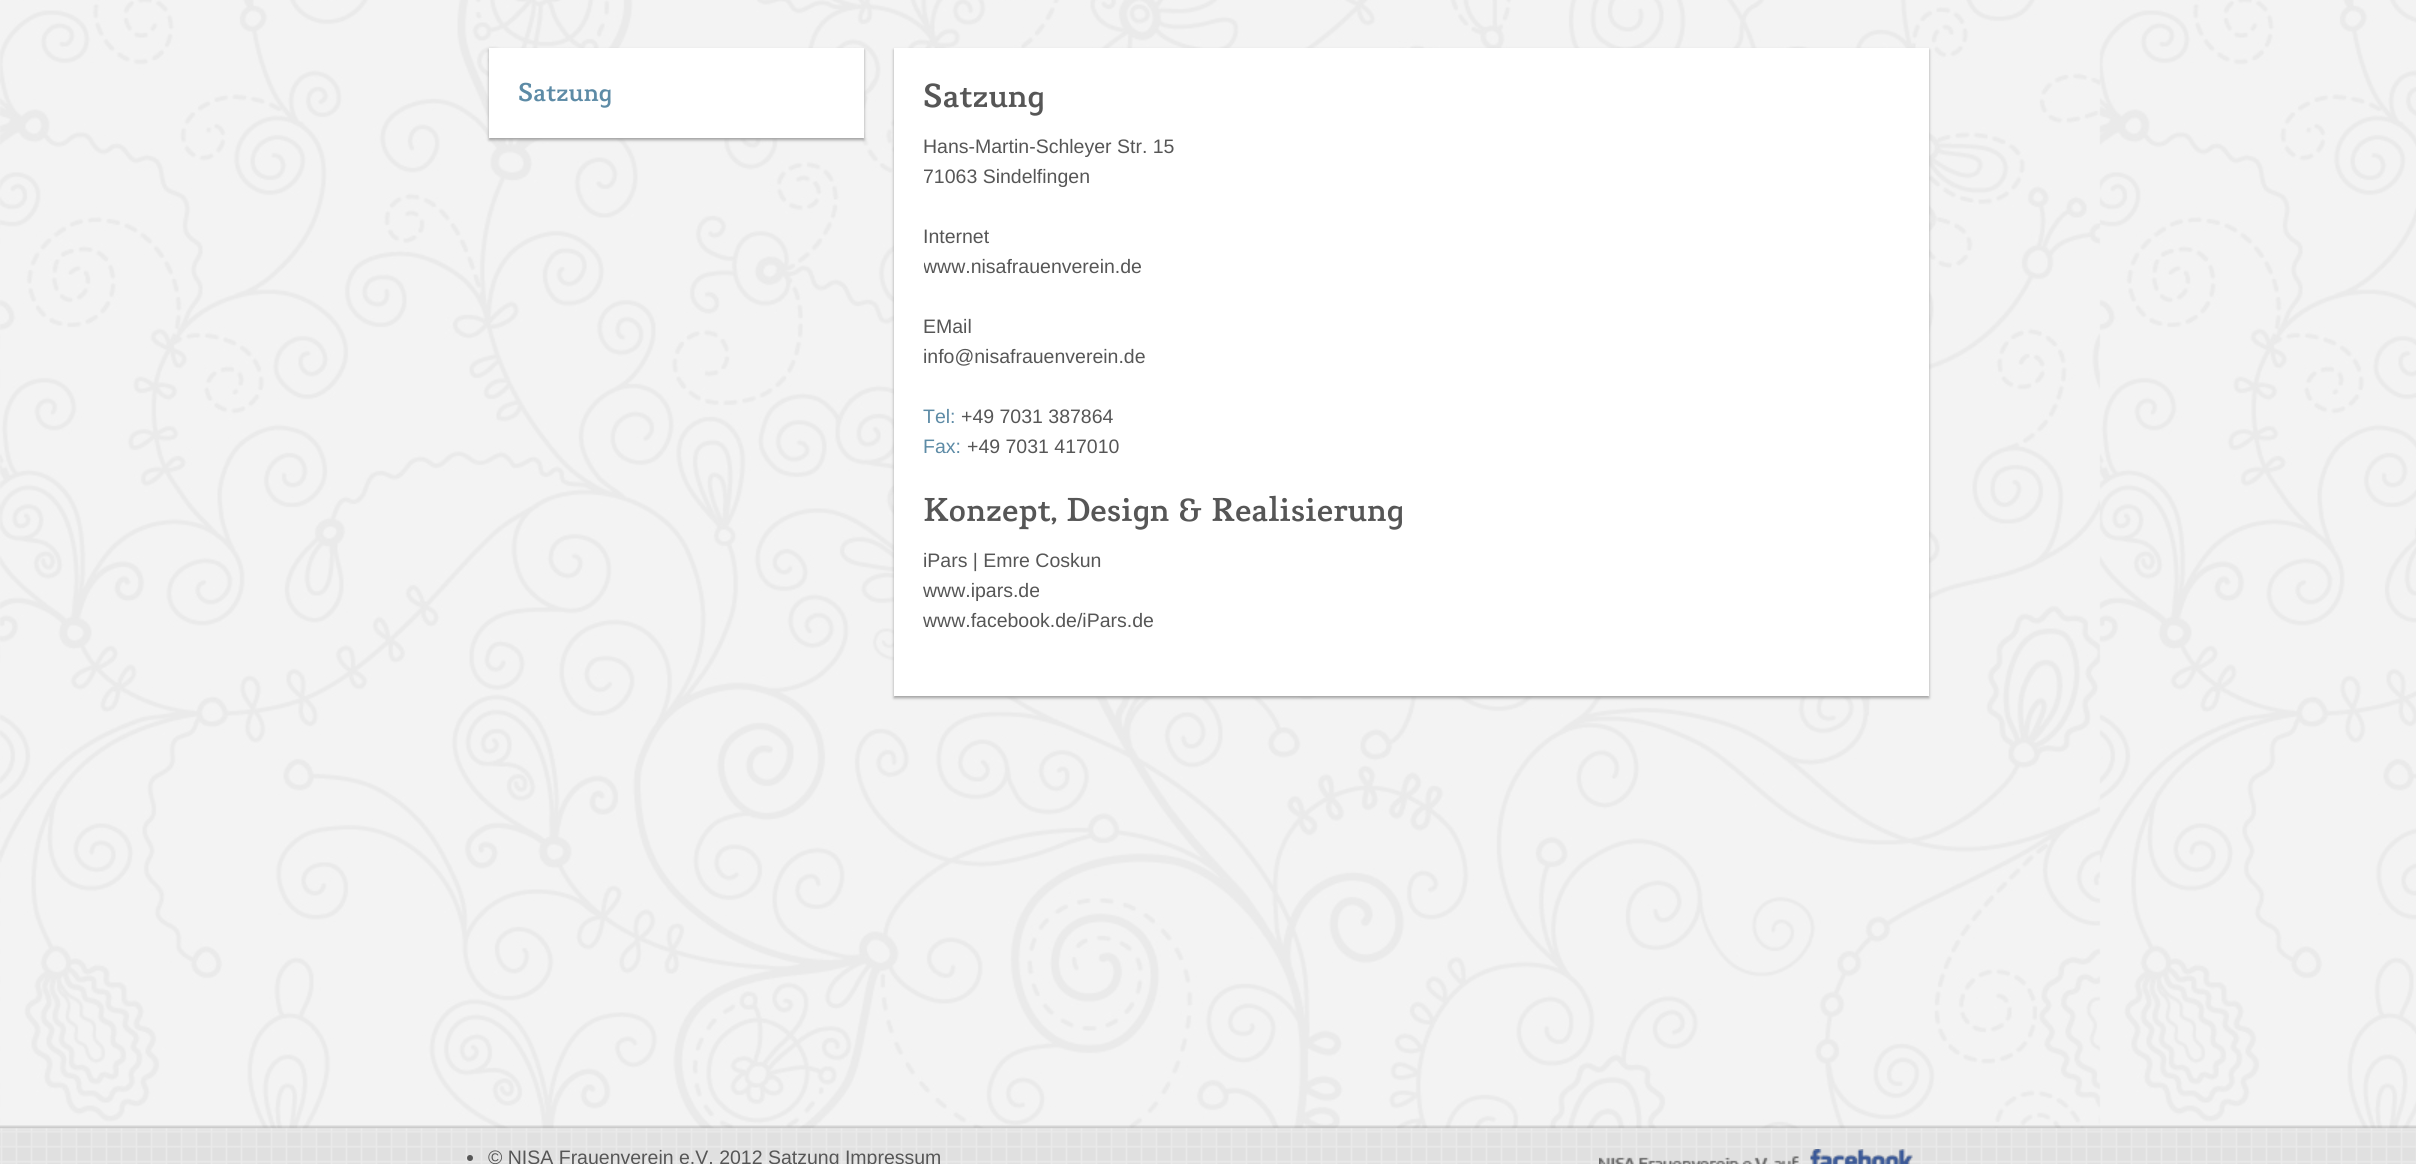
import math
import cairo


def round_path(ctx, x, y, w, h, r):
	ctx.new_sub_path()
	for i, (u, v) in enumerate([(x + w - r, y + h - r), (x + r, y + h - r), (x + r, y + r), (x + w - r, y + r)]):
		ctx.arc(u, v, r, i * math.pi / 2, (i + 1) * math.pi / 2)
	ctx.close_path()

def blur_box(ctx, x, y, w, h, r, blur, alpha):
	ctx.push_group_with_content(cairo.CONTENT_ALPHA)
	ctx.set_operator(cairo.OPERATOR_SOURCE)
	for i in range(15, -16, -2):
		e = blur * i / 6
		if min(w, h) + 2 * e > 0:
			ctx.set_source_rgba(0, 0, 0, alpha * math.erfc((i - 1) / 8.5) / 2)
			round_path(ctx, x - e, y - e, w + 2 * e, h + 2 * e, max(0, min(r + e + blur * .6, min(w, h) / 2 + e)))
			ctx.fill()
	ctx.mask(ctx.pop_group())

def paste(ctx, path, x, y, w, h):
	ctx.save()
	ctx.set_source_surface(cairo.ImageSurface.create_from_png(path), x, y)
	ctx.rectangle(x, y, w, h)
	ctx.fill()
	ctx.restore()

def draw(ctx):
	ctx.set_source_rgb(1, 1, 1)
	ctx.paint()
	paste(ctx, 'media/1.png', 0, 0, 2416, 1129)
	ctx.set_source_rgb(0.624, 0.624, 0.624)
	blur_box(ctx, 489, 50, 375, 90, 0, 1.5, 1)
	ctx.set_source_rgb(1, 1, 1)
	ctx.rectangle(489, 48, 375, 90)
	ctx.fill()
	ctx.select_font_face('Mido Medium')
	ctx.set_font_size(25.5)
	ctx.set_source_rgb(0.365, 0.545, 0.651)
	ctx.move_to(518, 101)
	ctx.show_text('Satzung')
	ctx.set_source_rgb(0.624, 0.624, 0.624)
	blur_box(ctx, 894, 50, 1035, 648, 0, 1.5, 1)
	ctx.set_source_rgb(1, 1, 1)
	ctx.rectangle(894, 48, 1035, 648)
	ctx.fill()
	ctx.set_font_size(33)
	ctx.set_source_rgb(0.337, 0.337, 0.337)
	ctx.move_to(923, 107)
	ctx.show_text('Satzung')
	ctx.select_font_face('Liberation Sans')
	ctx.set_font_size(19.5)
	for x, y, s in [
		(923, 153, 'Hans-Martin-Schleyer Str. 15'),
		(923, 183, '71063 Sindelfingen'),
		(923, 243, 'Internet'),
	]:
		ctx.move_to(x, y)
		ctx.show_text(s)
	ctx.save()
	ctx.rectangle(924, 132, 975, 330)
	ctx.clip()
	ctx.move_to(923, 273)
	ctx.show_text('www.nisafrauenverein.de')
	ctx.restore()
	ctx.move_to(923, 333)
	ctx.show_text('EMail')
	ctx.move_to(923, 363)
	ctx.show_text('info@nisafrauenverein.de')
	ctx.set_source_rgb(0.365, 0.545, 0.651)
	ctx.move_to(923, 423)
	ctx.show_text('Tel:')
	ctx.set_source_rgb(0.337, 0.337, 0.337)
	ctx.move_to(961, 423)
	ctx.show_text('+49 7031 387864')
	ctx.set_source_rgb(0.365, 0.545, 0.651)
	ctx.move_to(923, 453)
	ctx.show_text('Fax:')
	ctx.set_source_rgb(0.337, 0.337, 0.337)
	ctx.move_to(967, 453)
	ctx.show_text('+49 7031 417010')
	ctx.select_font_face('Mido Medium')
	ctx.set_font_size(33)
	ctx.move_to(923, 521)
	ctx.show_text('Konzept, Design & Realisierung')
	ctx.select_font_face('Liberation Sans')
	ctx.set_font_size(19.5)
	for x, y, s in [
		(923, 567, 'iPars | Emre Coskun'),
		(923, 597, 'www.ipars.de'),
		(923, 627, 'www.facebook.de/iPars.de'),
	]:
		ctx.move_to(x, y)
		ctx.show_text(s)
	paste(ctx, 'media/2.png', 0, 1125, 2416, 39)
	ctx.arc(470, 1158, 3, 0, 2 * math.pi)
	ctx.fill()
	ctx.move_to(488, 1164)
	ctx.show_text('© NISA Frauenverein e.V. 2012 Satzung Impressum')
	paste(ctx, 'media/3.png', 1599, 1149, 314, 15)


surface = cairo.ImageSurface(cairo.FORMAT_RGB24, 2416, 1164)
ctx = cairo.Context(surface)
options = cairo.FontOptions()
options.set_hint_metrics(cairo.HINT_METRICS_OFF)
options.set_hint_style(cairo.HINT_STYLE_NONE)
ctx.set_font_options(options)
ctx.set_miter_limit(4)
draw(ctx)
surface.write_to_png('image.png')
